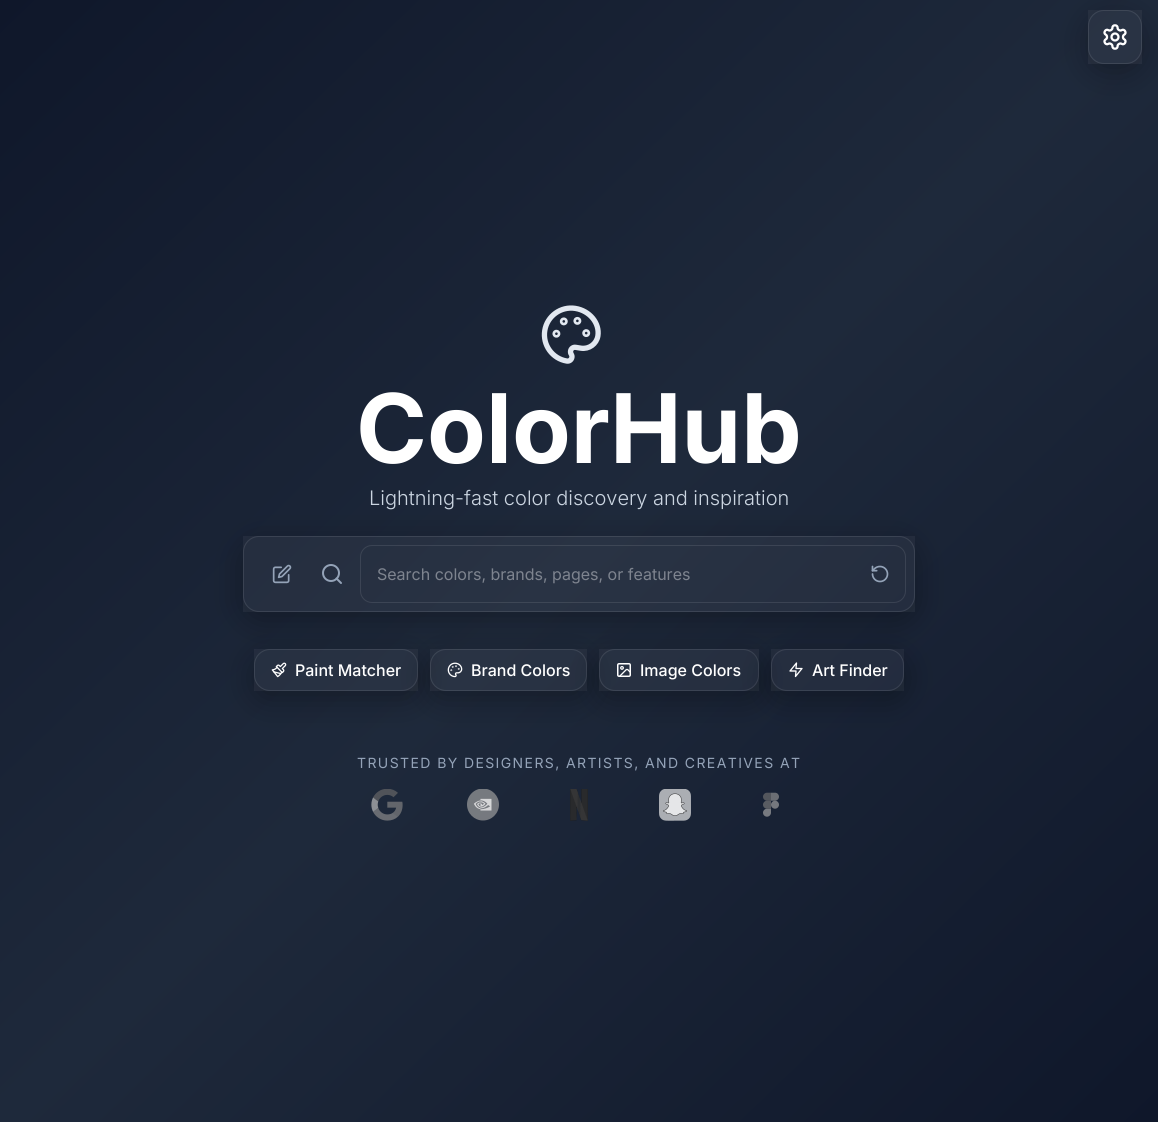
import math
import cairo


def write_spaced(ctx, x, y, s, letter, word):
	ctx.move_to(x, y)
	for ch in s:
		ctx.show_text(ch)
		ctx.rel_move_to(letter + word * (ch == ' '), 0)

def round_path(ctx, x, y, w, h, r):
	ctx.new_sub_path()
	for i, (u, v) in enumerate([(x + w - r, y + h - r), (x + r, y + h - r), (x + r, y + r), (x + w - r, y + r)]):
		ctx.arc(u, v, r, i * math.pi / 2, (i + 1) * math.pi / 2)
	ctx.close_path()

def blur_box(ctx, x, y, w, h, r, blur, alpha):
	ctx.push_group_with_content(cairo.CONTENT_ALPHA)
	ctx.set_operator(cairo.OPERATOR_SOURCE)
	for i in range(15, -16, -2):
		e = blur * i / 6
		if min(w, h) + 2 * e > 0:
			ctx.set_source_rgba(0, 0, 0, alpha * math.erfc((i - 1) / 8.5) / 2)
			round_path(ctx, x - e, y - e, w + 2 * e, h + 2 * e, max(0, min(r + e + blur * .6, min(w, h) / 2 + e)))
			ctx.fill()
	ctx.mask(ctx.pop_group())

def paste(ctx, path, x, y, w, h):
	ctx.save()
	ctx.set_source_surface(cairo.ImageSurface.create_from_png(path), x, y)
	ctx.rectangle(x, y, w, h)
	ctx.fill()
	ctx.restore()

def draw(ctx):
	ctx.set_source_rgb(1, 1, 1)
	ctx.paint()
	gradient = cairo.LinearGradient(18, -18, 1140, 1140)
	gradient.add_color_stop_rgba(0, 0.059, 0.09, 0.165, 1)
	gradient.add_color_stop_rgba(0.5, 0.118, 0.161, 0.231, 1)
	gradient.add_color_stop_rgba(1, 0.059, 0.09, 0.165, 1)
	ctx.set_source(gradient)
	ctx.rectangle(0, 0, 1158, 1122)
	ctx.fill()
	ctx.save()
	ctx.set_fill_rule(cairo.FILL_RULE_EVEN_ODD)
	ctx.new_path()
	ctx.move_to(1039, 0)
	ctx.line_to(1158, 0)
	ctx.line_to(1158, 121)
	ctx.line_to(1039, 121)
	ctx.close_path()
	ctx.move_to(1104, 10)
	ctx.line_to(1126, 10)
	ctx.curve_to(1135, 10, 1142, 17, 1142, 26)
	ctx.line_to(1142, 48)
	ctx.curve_to(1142, 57, 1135, 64, 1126, 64)
	ctx.line_to(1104, 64)
	ctx.curve_to(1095, 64, 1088, 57, 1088, 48)
	ctx.line_to(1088, 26)
	ctx.curve_to(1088, 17, 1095, 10, 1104, 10)
	ctx.close_path()
	ctx.clip()
	ctx.set_source_rgb(0, 0, 0)
	blur_box(ctx, 1088, 18, 54, 54, 16, 16, 0.3)
	ctx.restore()
	ctx.set_source_rgba(1, 1, 1, 0.05)
	ctx.rectangle(1088, 10, 54, 54)
	ctx.fill()
	round_path(ctx, 1088.5, 10.5, 53, 53, 15.5)
	ctx.set_source_rgba(1, 1, 1, 0.1)
	ctx.set_line_width(1)
	ctx.stroke()
	paste(ctx, 'media/1.png', 1103, 24, 24, 26)
	paste(ctx, 'media/2.png', 541, 305, 60, 59)
	ctx.select_font_face('Inter', cairo.FONT_SLANT_NORMAL, cairo.FONT_WEIGHT_BOLD)
	ctx.set_font_size(96)
	ctx.set_source_rgb(1, 1, 1)
	ctx.move_to(356, 463)
	ctx.show_text('ColorHub')
	ctx.select_font_face('Inter Light')
	ctx.set_font_size(20)
	ctx.set_source_rgb(0.796, 0.835, 0.882)
	ctx.move_to(369, 505)
	ctx.show_text('Lightning-fast color discovery and inspiration')
	ctx.save()
	ctx.set_fill_rule(cairo.FILL_RULE_EVEN_ODD)
	ctx.new_path()
	ctx.move_to(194, 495)
	ctx.line_to(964, 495)
	ctx.line_to(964, 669)
	ctx.line_to(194, 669)
	ctx.close_path()
	ctx.move_to(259, 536)
	ctx.line_to(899, 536)
	ctx.curve_to(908, 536, 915, 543, 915, 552)
	ctx.line_to(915, 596)
	ctx.curve_to(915, 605, 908, 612, 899, 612)
	ctx.line_to(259, 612)
	ctx.curve_to(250, 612, 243, 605, 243, 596)
	ctx.line_to(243, 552)
	ctx.curve_to(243, 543, 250, 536, 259, 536)
	ctx.close_path()
	ctx.clip()
	ctx.set_source_rgb(0, 0, 0)
	blur_box(ctx, 243, 544, 672, 76, 16, 16, 0.3)
	ctx.restore()
	ctx.set_source_rgba(1, 1, 1, 0.05)
	ctx.rectangle(243, 536, 672, 76)
	ctx.fill()
	round_path(ctx, 243.5, 536.5, 671, 75, 15.5)
	ctx.set_source_rgba(1, 1, 1, 0.1)
	ctx.stroke()
	paste(ctx, 'media/3.png', 272, 564, 20, 20)
	ctx.arc(331, 573, 8, 0, 2 * math.pi)
	ctx.set_source_rgb(0.58, 0.639, 0.722)
	ctx.set_line_width(2)
	ctx.stroke()
	ctx.new_path()
	ctx.move_to(341, 583)
	ctx.line_to(336.5, 578.5)
	ctx.set_line_cap(cairo.LINE_CAP_ROUND)
	ctx.set_line_join(cairo.LINE_JOIN_ROUND)
	ctx.stroke()
	round_path(ctx, 360.5, 545.5, 545, 57, 11.5)
	ctx.set_source_rgba(1, 1, 1, 0.1)
	ctx.set_line_width(1)
	ctx.set_line_cap(cairo.LINE_CAP_BUTT)
	ctx.set_line_join(cairo.LINE_JOIN_MITER)
	ctx.stroke()
	ctx.select_font_face('Inter')
	ctx.set_font_size(16)
	ctx.set_source_rgb(0.494, 0.518, 0.561)
	ctx.move_to(377, 580)
	ctx.show_text('Search colors, brands, pages, or features')
	paste(ctx, 'media/4.png', 871, 565, 18, 18)
	ctx.save()
	ctx.set_fill_rule(cairo.FILL_RULE_EVEN_ODD)
	ctx.new_path()
	ctx.move_to(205, 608)
	ctx.line_to(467, 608)
	ctx.line_to(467, 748)
	ctx.line_to(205, 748)
	ctx.close_path()
	ctx.move_to(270, 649)
	ctx.line_to(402, 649)
	ctx.curve_to(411, 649, 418, 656, 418, 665)
	ctx.line_to(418, 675)
	ctx.curve_to(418, 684, 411, 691, 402, 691)
	ctx.line_to(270, 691)
	ctx.curve_to(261, 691, 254, 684, 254, 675)
	ctx.line_to(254, 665)
	ctx.curve_to(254, 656, 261, 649, 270, 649)
	ctx.close_path()
	ctx.clip()
	ctx.set_source_rgb(0, 0, 0)
	blur_box(ctx, 254, 657, 164, 42, 16, 16, 0.3)
	ctx.restore()
	ctx.set_source_rgba(1, 1, 1, 0.05)
	ctx.rectangle(254, 649, 164, 42)
	ctx.fill()
	round_path(ctx, 254.5, 649.5, 163, 41, 15.5)
	ctx.set_source_rgba(1, 1, 1, 0.1)
	ctx.stroke()
	paste(ctx, 'media/5.png', 271, 662, 16, 16)
	ctx.select_font_face('Inter Medium')
	ctx.set_source_rgb(1, 1, 1)
	ctx.move_to(295, 676)
	ctx.show_text('Paint Matcher')
	ctx.save()
	ctx.set_fill_rule(cairo.FILL_RULE_EVEN_ODD)
	ctx.new_path()
	ctx.move_to(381, 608)
	ctx.line_to(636, 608)
	ctx.line_to(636, 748)
	ctx.line_to(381, 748)
	ctx.close_path()
	ctx.move_to(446, 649)
	ctx.line_to(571, 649)
	ctx.curve_to(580, 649, 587, 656, 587, 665)
	ctx.line_to(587, 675)
	ctx.curve_to(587, 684, 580, 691, 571, 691)
	ctx.line_to(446, 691)
	ctx.curve_to(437, 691, 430, 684, 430, 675)
	ctx.line_to(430, 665)
	ctx.curve_to(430, 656, 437, 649, 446, 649)
	ctx.close_path()
	ctx.clip()
	ctx.set_source_rgb(0, 0, 0)
	blur_box(ctx, 430, 657, 157, 42, 16, 16, 0.3)
	ctx.restore()
	ctx.set_source_rgba(1, 1, 1, 0.05)
	ctx.rectangle(430, 649, 157, 42)
	ctx.fill()
	round_path(ctx, 430.5, 649.5, 156, 41, 15.5)
	ctx.set_source_rgba(1, 1, 1, 0.1)
	ctx.stroke()
	paste(ctx, 'media/6.png', 447, 662, 16, 16)
	ctx.set_source_rgb(1, 1, 1)
	ctx.move_to(471, 676)
	ctx.show_text('Brand Colors')
	ctx.save()
	ctx.set_fill_rule(cairo.FILL_RULE_EVEN_ODD)
	ctx.new_path()
	ctx.move_to(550, 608)
	ctx.line_to(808, 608)
	ctx.line_to(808, 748)
	ctx.line_to(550, 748)
	ctx.close_path()
	ctx.move_to(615, 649)
	ctx.line_to(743, 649)
	ctx.curve_to(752, 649, 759, 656, 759, 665)
	ctx.line_to(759, 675)
	ctx.curve_to(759, 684, 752, 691, 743, 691)
	ctx.line_to(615, 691)
	ctx.curve_to(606, 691, 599, 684, 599, 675)
	ctx.line_to(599, 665)
	ctx.curve_to(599, 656, 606, 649, 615, 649)
	ctx.close_path()
	ctx.clip()
	ctx.set_source_rgb(0, 0, 0)
	blur_box(ctx, 599, 657, 160, 42, 16, 16, 0.3)
	ctx.restore()
	ctx.set_source_rgba(1, 1, 1, 0.05)
	ctx.rectangle(599, 649, 160, 42)
	ctx.fill()
	round_path(ctx, 599.5, 649.5, 159, 41, 15.5)
	ctx.set_source_rgba(1, 1, 1, 0.1)
	ctx.stroke()
	paste(ctx, 'media/7.png', 617, 663, 14, 14)
	ctx.set_source_rgb(1, 1, 1)
	ctx.move_to(640, 676)
	ctx.show_text('Image Colors')
	ctx.save()
	ctx.set_fill_rule(cairo.FILL_RULE_EVEN_ODD)
	ctx.new_path()
	ctx.move_to(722, 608)
	ctx.line_to(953, 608)
	ctx.line_to(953, 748)
	ctx.line_to(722, 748)
	ctx.close_path()
	ctx.move_to(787, 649)
	ctx.line_to(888, 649)
	ctx.curve_to(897, 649, 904, 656, 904, 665)
	ctx.line_to(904, 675)
	ctx.curve_to(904, 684, 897, 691, 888, 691)
	ctx.line_to(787, 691)
	ctx.curve_to(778, 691, 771, 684, 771, 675)
	ctx.line_to(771, 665)
	ctx.curve_to(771, 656, 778, 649, 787, 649)
	ctx.close_path()
	ctx.clip()
	ctx.set_source_rgb(0, 0, 0)
	blur_box(ctx, 771, 657, 133, 42, 16, 16, 0.3)
	ctx.restore()
	ctx.set_source_rgba(1, 1, 1, 0.05)
	ctx.rectangle(771, 649, 133, 42)
	ctx.fill()
	round_path(ctx, 771.5, 649.5, 132, 41, 15.5)
	ctx.set_source_rgba(1, 1, 1, 0.1)
	ctx.stroke()
	ctx.new_path()
	ctx.move_to(796.5, 663)
	ctx.line_to(790, 671)
	ctx.line_to(796, 671)
	ctx.line_to(795.5, 676.5)
	ctx.line_to(802, 668.5)
	ctx.line_to(796, 668.5)
	ctx.close_path()
	ctx.set_source_rgb(1, 1, 1)
	ctx.set_line_width(1.3)
	ctx.set_line_cap(cairo.LINE_CAP_ROUND)
	ctx.set_line_join(cairo.LINE_JOIN_ROUND)
	ctx.stroke()
	ctx.move_to(812, 676)
	ctx.show_text('Art Finder')
	ctx.select_font_face('Inter')
	ctx.set_font_size(14)
	ctx.set_source_rgb(0.58, 0.639, 0.722)
	write_spaced(ctx, 357, 768, 'TRUSTED BY DESIGNERS, ARTISTS, AND CREATIVES AT', 1.4, 0)
	paste(ctx, 'media/8.png', 371, 789, 32, 32)
	paste(ctx, 'media/9.png', 467, 789, 32, 32)
	paste(ctx, 'media/10.png', 570, 789, 18, 32)
	paste(ctx, 'media/11.png', 659, 789, 32, 32)
	paste(ctx, 'media/12.png', 763, 792, 16, 25)


surface = cairo.ImageSurface(cairo.FORMAT_RGB24, 1158, 1122)
ctx = cairo.Context(surface)
options = cairo.FontOptions()
options.set_hint_metrics(cairo.HINT_METRICS_OFF)
options.set_hint_style(cairo.HINT_STYLE_NONE)
ctx.set_font_options(options)
ctx.set_miter_limit(4)
draw(ctx)
surface.write_to_png('image.png')
